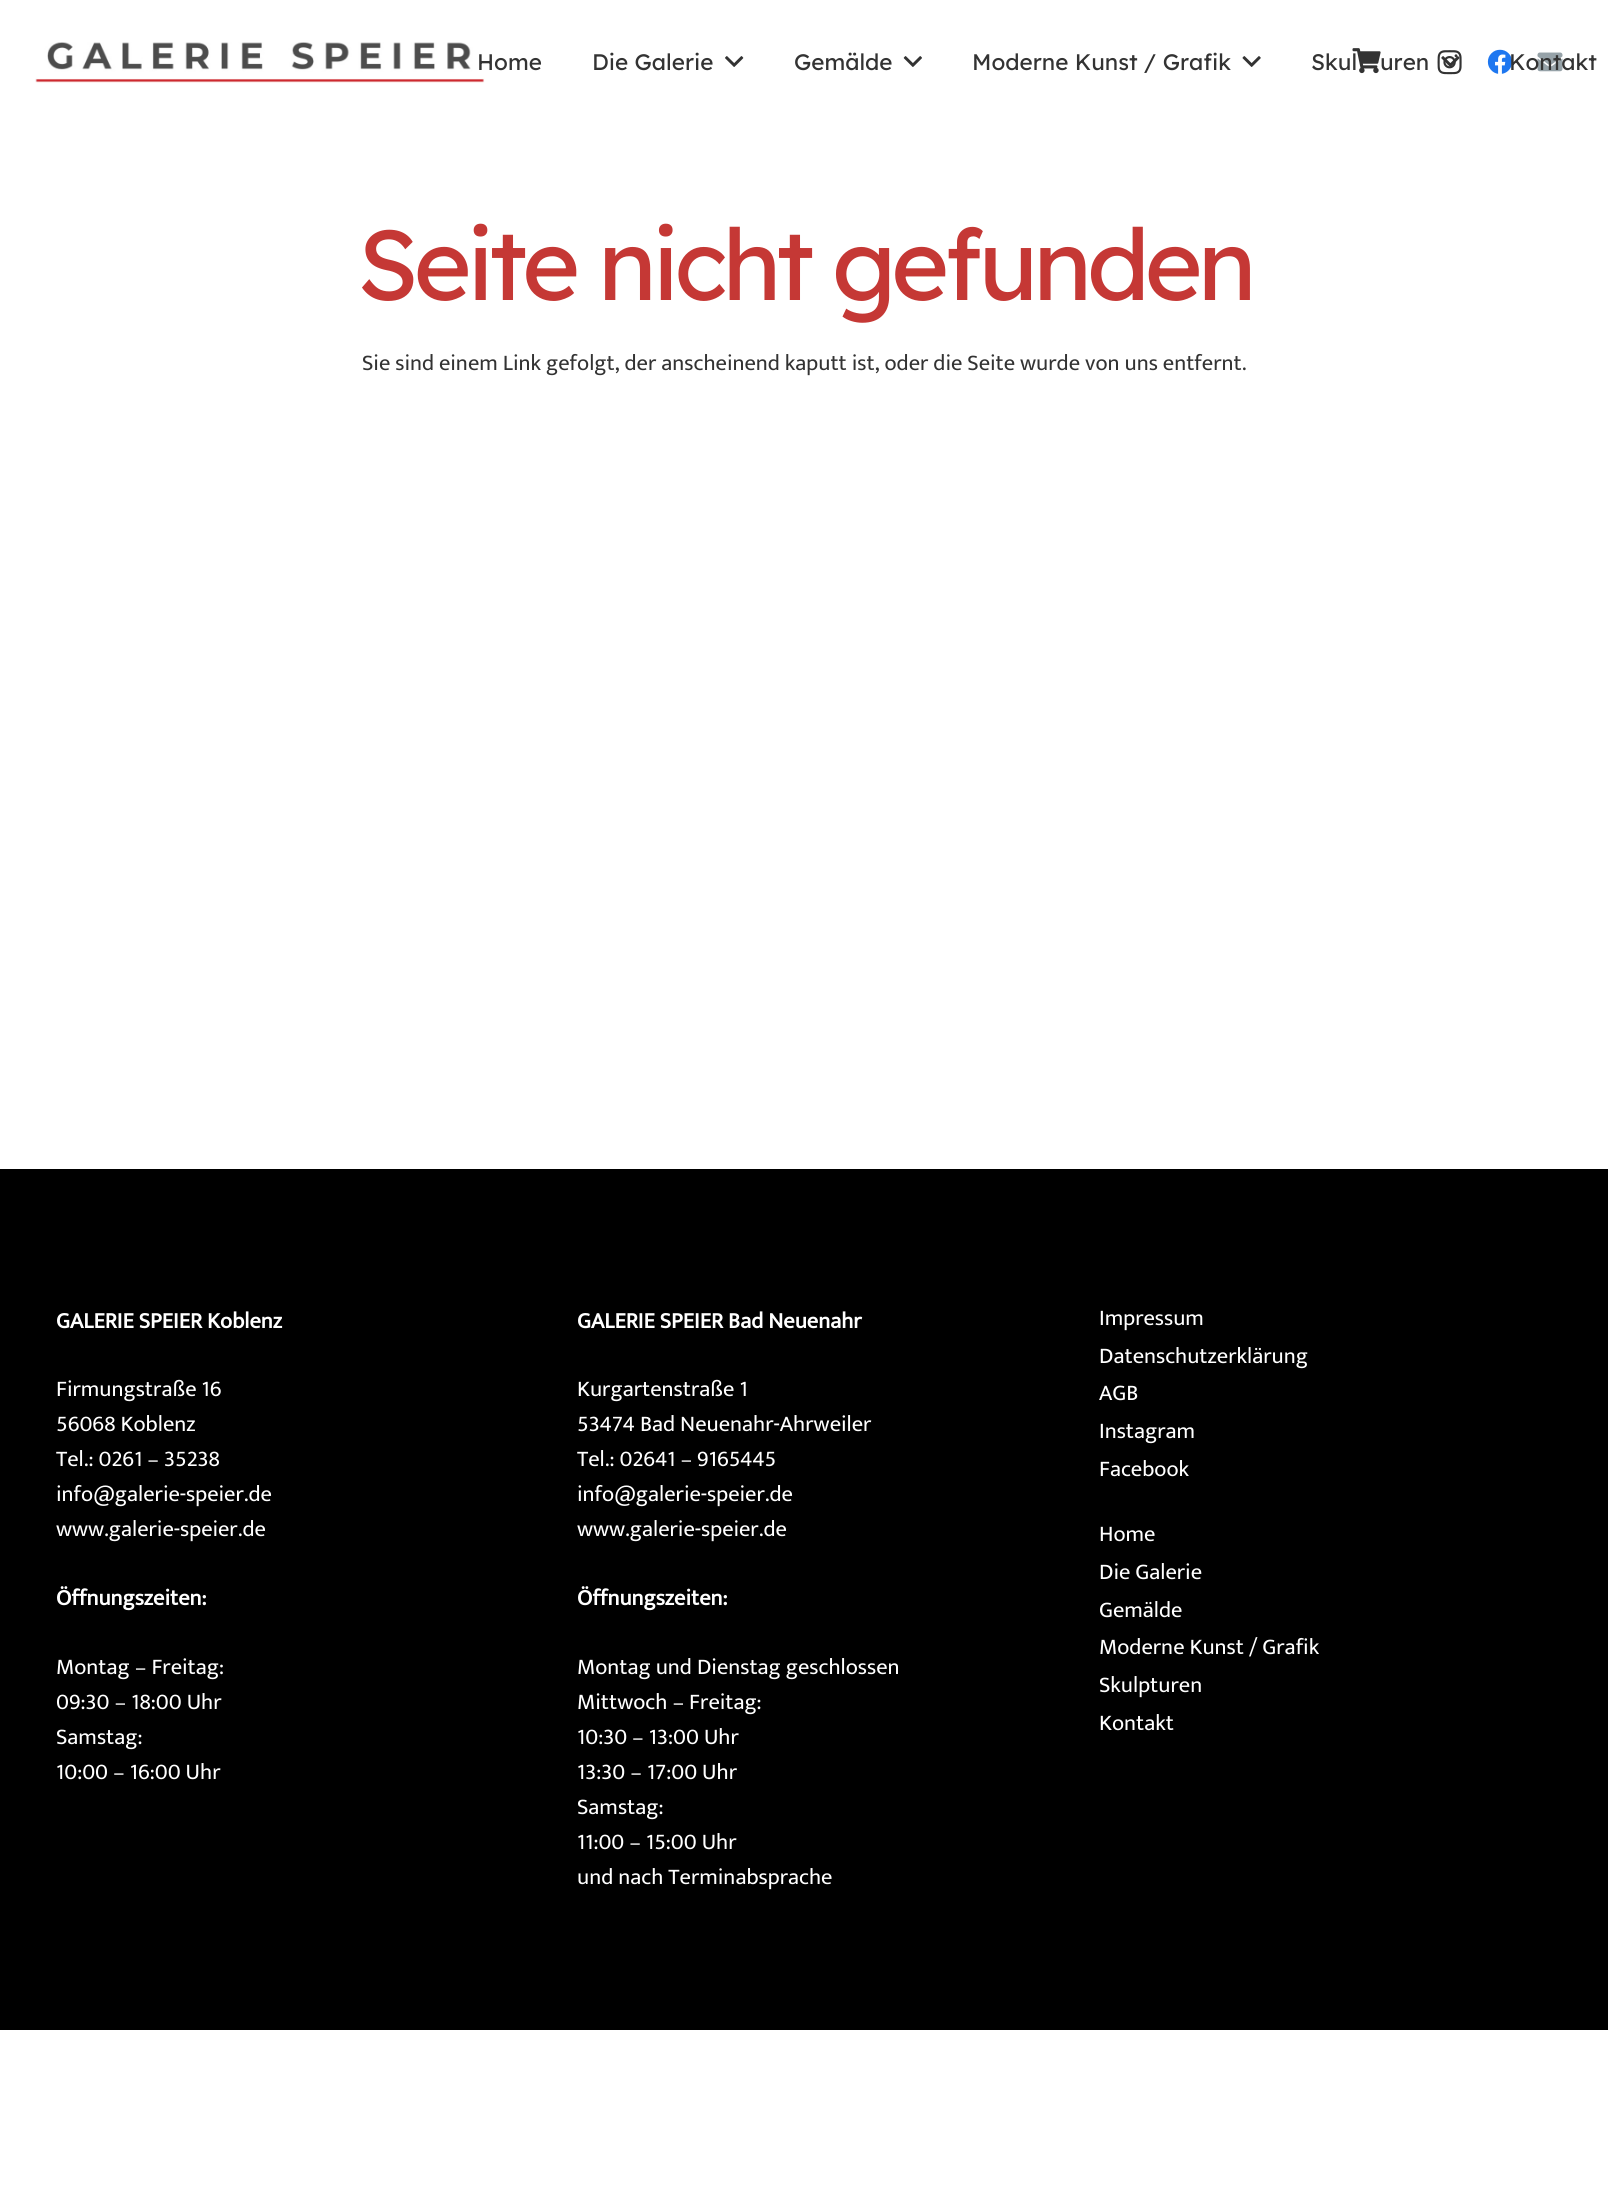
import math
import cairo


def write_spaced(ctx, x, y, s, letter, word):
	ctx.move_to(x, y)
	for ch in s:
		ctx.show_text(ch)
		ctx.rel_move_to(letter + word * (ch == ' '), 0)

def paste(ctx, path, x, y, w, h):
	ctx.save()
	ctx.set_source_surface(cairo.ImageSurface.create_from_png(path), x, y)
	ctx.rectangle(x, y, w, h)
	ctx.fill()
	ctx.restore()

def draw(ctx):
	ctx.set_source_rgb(1, 1, 1)
	ctx.paint()
	paste(ctx, 'media/1.png', 35, 42, 450, 41)
	paste(ctx, 'media/2.png', 1352, 48, 29, 26)
	paste(ctx, 'media/3.png', 1437, 50, 25, 25)
	paste(ctx, 'media/4.png', 1487, 49, 26, 25)
	paste(ctx, 'media/5.png', 1537, 52, 26, 20)
	ctx.select_font_face('Lexend')
	ctx.set_font_size(22.5)
	ctx.set_source_rgb(0.2, 0.2, 0.2)
	ctx.move_to(477, 70)
	ctx.show_text('Home')
	ctx.move_to(592, 70)
	ctx.show_text('Die Galerie')
	paste(ctx, 'media/6.png', 725, 56, 19, 11)
	ctx.move_to(794, 70)
	ctx.show_text('Gemälde')
	paste(ctx, 'media/7.png', 903, 56, 19, 11)
	ctx.move_to(972, 70)
	ctx.show_text('Moderne Kunst / Grafik')
	paste(ctx, 'media/8.png', 1242, 56, 19, 11)
	ctx.move_to(1311, 70)
	ctx.show_text('Skul')
	ctx.move_to(1380, 70)
	ctx.show_text('uren')
	paste(ctx, 'media/9.png', 1441, 56, 19, 11)
	ctx.move_to(1509, 70)
	ctx.show_text('Kontakt')
	ctx.set_font_size(99)
	ctx.set_source_rgb(0.773, 0.22, 0.208)
	write_spaced(ctx, 357, 300, 'Seite nicht gefunden', -5, 0)
	ctx.select_font_face('Mukta')
	ctx.set_font_size(22.5)
	ctx.set_source_rgb(0.2, 0.2, 0.2)
	ctx.move_to(362, 370)
	ctx.show_text('Sie sind einem Link gefolgt, der anscheinend kaputt ist, oder die Seite wurde von uns entfernt.')
	ctx.set_source_rgb(0, 0, 0)
	ctx.rectangle(0, 1169, 1608, 861)
	ctx.fill()
	ctx.select_font_face('Mukta', cairo.FONT_SLANT_NORMAL, cairo.FONT_WEIGHT_BOLD)
	ctx.set_source_rgb(1, 1, 1)
	ctx.move_to(56, 1328)
	ctx.show_text('GALERIE SPEIER Koblenz')
	ctx.select_font_face('Mukta')
	for x, y, s in [
		(56, 1396, 'Firmungstraße 16'),
		(56, 1431, '56068 Koblenz'),
		(56, 1466, 'Tel.: 0261 – 35238'),
		(56, 1501, 'info@galerie-speier.de'),
		(56, 1536, 'www.galerie-speier.de'),
	]:
		ctx.move_to(x, y)
		ctx.show_text(s)
	ctx.select_font_face('Mukta', cairo.FONT_SLANT_NORMAL, cairo.FONT_WEIGHT_BOLD)
	ctx.move_to(56, 1605)
	ctx.show_text('Öffnungszeiten:')
	ctx.select_font_face('Mukta')
	for x, y, s in [
		(56, 1674, 'Montag – Freitag:'),
		(56, 1709, '09:30 – 18:00 Uhr'),
		(56, 1744, 'Samstag:'),
		(56, 1779, '10:00 – 16:00 Uhr'),
	]:
		ctx.move_to(x, y)
		ctx.show_text(s)
	ctx.select_font_face('Mukta', cairo.FONT_SLANT_NORMAL, cairo.FONT_WEIGHT_BOLD)
	ctx.move_to(577, 1328)
	ctx.show_text('GALERIE SPEIER Bad Neuenahr')
	ctx.select_font_face('Mukta')
	for x, y, s in [
		(577, 1396, 'Kurgartenstraße 1'),
		(577, 1431, '53474 Bad Neuenahr-Ahrweiler'),
		(577, 1466, 'Tel.: 02641 – 9165445'),
		(577, 1501, 'info@galerie-speier.de'),
		(577, 1536, 'www.galerie-speier.de'),
	]:
		ctx.move_to(x, y)
		ctx.show_text(s)
	ctx.select_font_face('Mukta', cairo.FONT_SLANT_NORMAL, cairo.FONT_WEIGHT_BOLD)
	ctx.move_to(577, 1605)
	ctx.show_text('Öffnungszeiten:')
	ctx.select_font_face('Mukta')
	for x, y, s in [
		(577, 1674, 'Montag und Dienstag geschlossen'),
		(577, 1709, 'Mittwoch – Freitag:'),
		(577, 1744, '10:30 – 13:00 Uhr'),
		(577, 1779, '13:30 – 17:00 Uhr'),
		(577, 1814, 'Samstag:'),
		(577, 1849, '11:00 – 15:00 Uhr'),
		(577, 1884, 'und nach Terminabsprache'),
		(1099, 1325, 'Impressum'),
		(1099, 1363, 'Datenschutzerklärung'),
		(1099, 1400, 'AGB'),
		(1099, 1438, 'Instagram'),
		(1099, 1476, 'Facebook'),
		(1099, 1541, 'Home'),
		(1099, 1579, 'Die Galerie'),
		(1099, 1617, 'Gemälde'),
		(1099, 1654, 'Moderne Kunst / Grafik'),
		(1099, 1692, 'Skulpturen'),
		(1099, 1730, 'Kontakt'),
	]:
		ctx.move_to(x, y)
		ctx.show_text(s)


surface = cairo.ImageSurface(cairo.FORMAT_RGB24, 1608, 2209)
ctx = cairo.Context(surface)
options = cairo.FontOptions()
options.set_hint_metrics(cairo.HINT_METRICS_OFF)
options.set_hint_style(cairo.HINT_STYLE_NONE)
ctx.set_font_options(options)
ctx.set_miter_limit(4)
draw(ctx)
surface.write_to_png('image.png')
